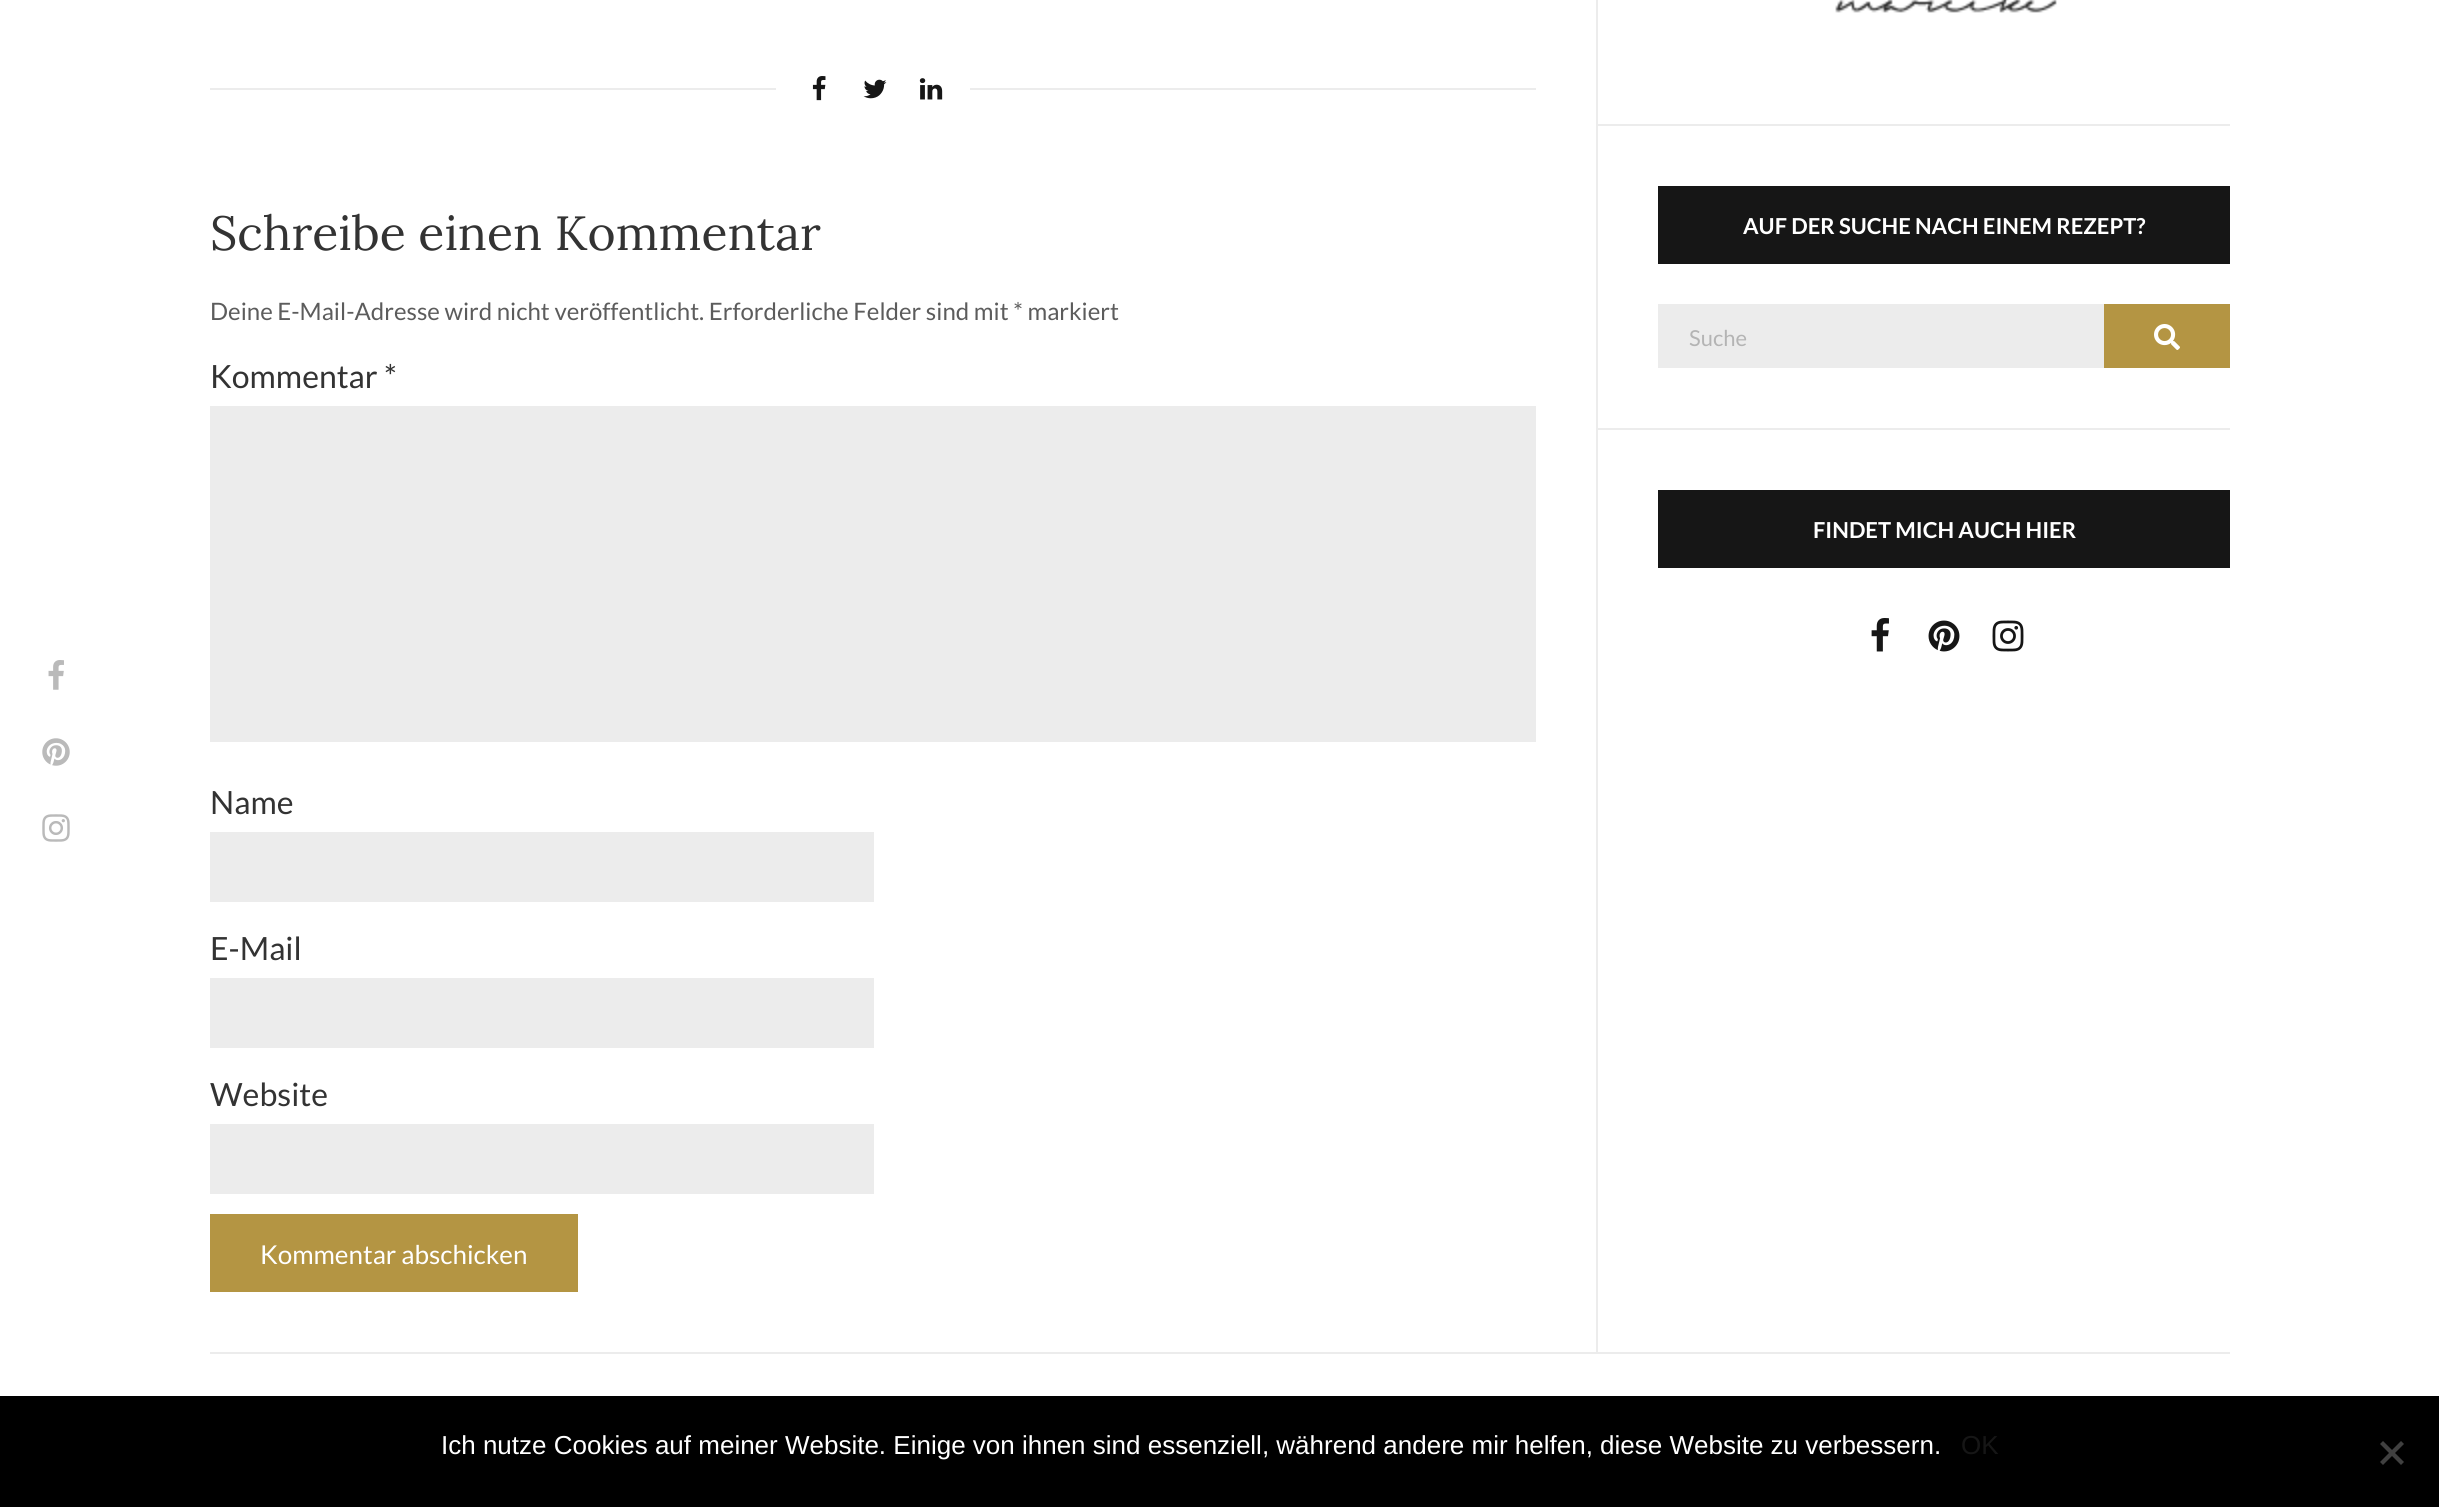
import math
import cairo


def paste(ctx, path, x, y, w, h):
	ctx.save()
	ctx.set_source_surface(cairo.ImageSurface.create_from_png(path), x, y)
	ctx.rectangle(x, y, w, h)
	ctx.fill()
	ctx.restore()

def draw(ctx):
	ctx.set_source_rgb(1, 1, 1)
	ctx.paint()
	paste(ctx, 'media/1.png', 48, 660, 16, 30)
	paste(ctx, 'media/2.png', 42, 738, 28, 28)
	paste(ctx, 'media/3.png', 42, 814, 28, 28)
	ctx.set_source_rgb(0.922, 0.922, 0.922)
	ctx.rectangle(210, 88, 1326, 2)
	ctx.fill()
	ctx.set_source_rgb(1, 1, 1)
	ctx.rectangle(776, 88, 194, 2)
	ctx.fill()
	paste(ctx, 'media/4.png', 812, 76, 14, 25)
	paste(ctx, 'media/5.png', 863, 79, 24, 20)
	paste(ctx, 'media/6.png', 919, 78, 24, 22)
	ctx.select_font_face('Lora')
	ctx.set_font_size(48)
	ctx.set_source_rgb(0.2, 0.2, 0.2)
	ctx.move_to(210, 250)
	ctx.show_text('Schreibe einen Kommentar')
	ctx.select_font_face('Lato')
	ctx.set_font_size(24)
	ctx.set_source_rgb(0.361, 0.361, 0.361)
	ctx.move_to(210, 320)
	ctx.show_text('Deine E-Mail-Adresse wird nicht veröffentlicht. Erforderliche Felder sind mit * markiert')
	ctx.set_font_size(32)
	ctx.set_source_rgb(0.2, 0.2, 0.2)
	ctx.move_to(210, 388)
	ctx.show_text('Kommentar *')
	ctx.set_source_rgb(0.922, 0.922, 0.922)
	ctx.rectangle(210, 406, 1326, 336)
	ctx.fill()
	ctx.set_source_rgb(0.2, 0.2, 0.2)
	ctx.move_to(210, 814)
	ctx.show_text('Name')
	ctx.set_source_rgb(0.922, 0.922, 0.922)
	ctx.rectangle(210, 832, 664, 70)
	ctx.fill()
	ctx.set_source_rgb(0.2, 0.2, 0.2)
	ctx.move_to(210, 960)
	ctx.show_text('E-Mail')
	ctx.set_source_rgb(0.922, 0.922, 0.922)
	ctx.rectangle(210, 978, 664, 70)
	ctx.fill()
	ctx.set_source_rgb(0.2, 0.2, 0.2)
	ctx.move_to(210, 1106)
	ctx.show_text('Website')
	ctx.set_source_rgb(0.922, 0.922, 0.922)
	ctx.rectangle(210, 1124, 664, 70)
	ctx.fill()
	ctx.set_source_rgb(0.706, 0.584, 0.263)
	ctx.rectangle(210, 1214, 368, 78)
	ctx.fill()
	ctx.set_font_size(26)
	ctx.set_source_rgb(1, 1, 1)
	ctx.move_to(260, 1264)
	ctx.show_text('Kommentar abschicken')
	ctx.set_source_rgb(0.922, 0.922, 0.922)
	ctx.rectangle(1596, 0, 2, 1352)
	ctx.fill()
	ctx.rectangle(1598, 124, 632, 2)
	ctx.fill()
	paste(ctx, 'media/7.png', 1835, 0, 222, 13)
	ctx.rectangle(1598, 428, 632, 2)
	ctx.fill()
	ctx.set_source_rgb(0.086, 0.086, 0.086)
	ctx.rectangle(1658, 186, 572, 78)
	ctx.fill()
	ctx.select_font_face('Lato', cairo.FONT_SLANT_NORMAL, cairo.FONT_WEIGHT_BOLD)
	ctx.set_font_size(22)
	ctx.set_source_rgb(1, 1, 1)
	ctx.move_to(1743, 234)
	ctx.show_text('AUF DER SUCHE NACH EINEM REZEPT?')
	ctx.set_source_rgb(0.922, 0.922, 0.922)
	ctx.rectangle(1658, 304, 446, 64)
	ctx.fill()
	ctx.select_font_face('Lato')
	ctx.set_source_rgb(0.706, 0.706, 0.706)
	ctx.move_to(1689, 346)
	ctx.show_text('Suche')
	ctx.set_source_rgb(0.706, 0.584, 0.263)
	ctx.rectangle(2104, 304, 126, 64)
	ctx.fill()
	paste(ctx, 'media/8.png', 2154, 324, 26, 26)
	ctx.set_source_rgb(0.086, 0.086, 0.086)
	ctx.rectangle(1658, 490, 572, 78)
	ctx.fill()
	ctx.select_font_face('Lato', cairo.FONT_SLANT_NORMAL, cairo.FONT_WEIGHT_BOLD)
	ctx.set_source_rgb(1, 1, 1)
	ctx.move_to(1813, 538)
	ctx.show_text('FINDET MICH AUCH HIER')
	paste(ctx, 'media/9.png', 1871, 618, 18, 34)
	paste(ctx, 'media/10.png', 1928, 620, 32, 32)
	paste(ctx, 'media/11.png', 1992, 620, 32, 32)
	ctx.set_source_rgb(0.922, 0.922, 0.922)
	ctx.rectangle(210, 1352, 2020, 2)
	ctx.fill()
	ctx.set_source_rgb(0, 0, 0)
	ctx.rectangle(0, 1396, 2439, 111)
	ctx.fill()
	ctx.select_font_face('Liberation Sans')
	ctx.set_font_size(26)
	ctx.set_source_rgb(1, 1, 1)
	ctx.move_to(441, 1454)
	ctx.show_text('Ich nutze Cookies auf meiner Website. Einige von ihnen sind essenziell, während andere mir helfen, diese Website zu verbessern.')
	ctx.set_source_rgb(0.086, 0.086, 0.086)
	ctx.move_to(1961, 1454)
	ctx.show_text('OK')
	ctx.set_source_rgb(0.251, 0.251, 0.251)
	ctx.new_path()
	ctx.move_to(2401, 1441)
	ctx.line_to(2404, 1444)
	ctx.line_to(2383, 1465)
	ctx.line_to(2380, 1462)
	ctx.close_path()
	ctx.fill()
	ctx.new_path()
	ctx.move_to(2380, 1444)
	ctx.line_to(2383, 1441)
	ctx.line_to(2404, 1462)
	ctx.line_to(2401, 1465)
	ctx.close_path()
	ctx.fill()


surface = cairo.ImageSurface(cairo.FORMAT_RGB24, 2439, 1507)
ctx = cairo.Context(surface)
options = cairo.FontOptions()
options.set_hint_metrics(cairo.HINT_METRICS_OFF)
options.set_hint_style(cairo.HINT_STYLE_NONE)
ctx.set_font_options(options)
ctx.set_miter_limit(4)
draw(ctx)
surface.write_to_png('image.png')
